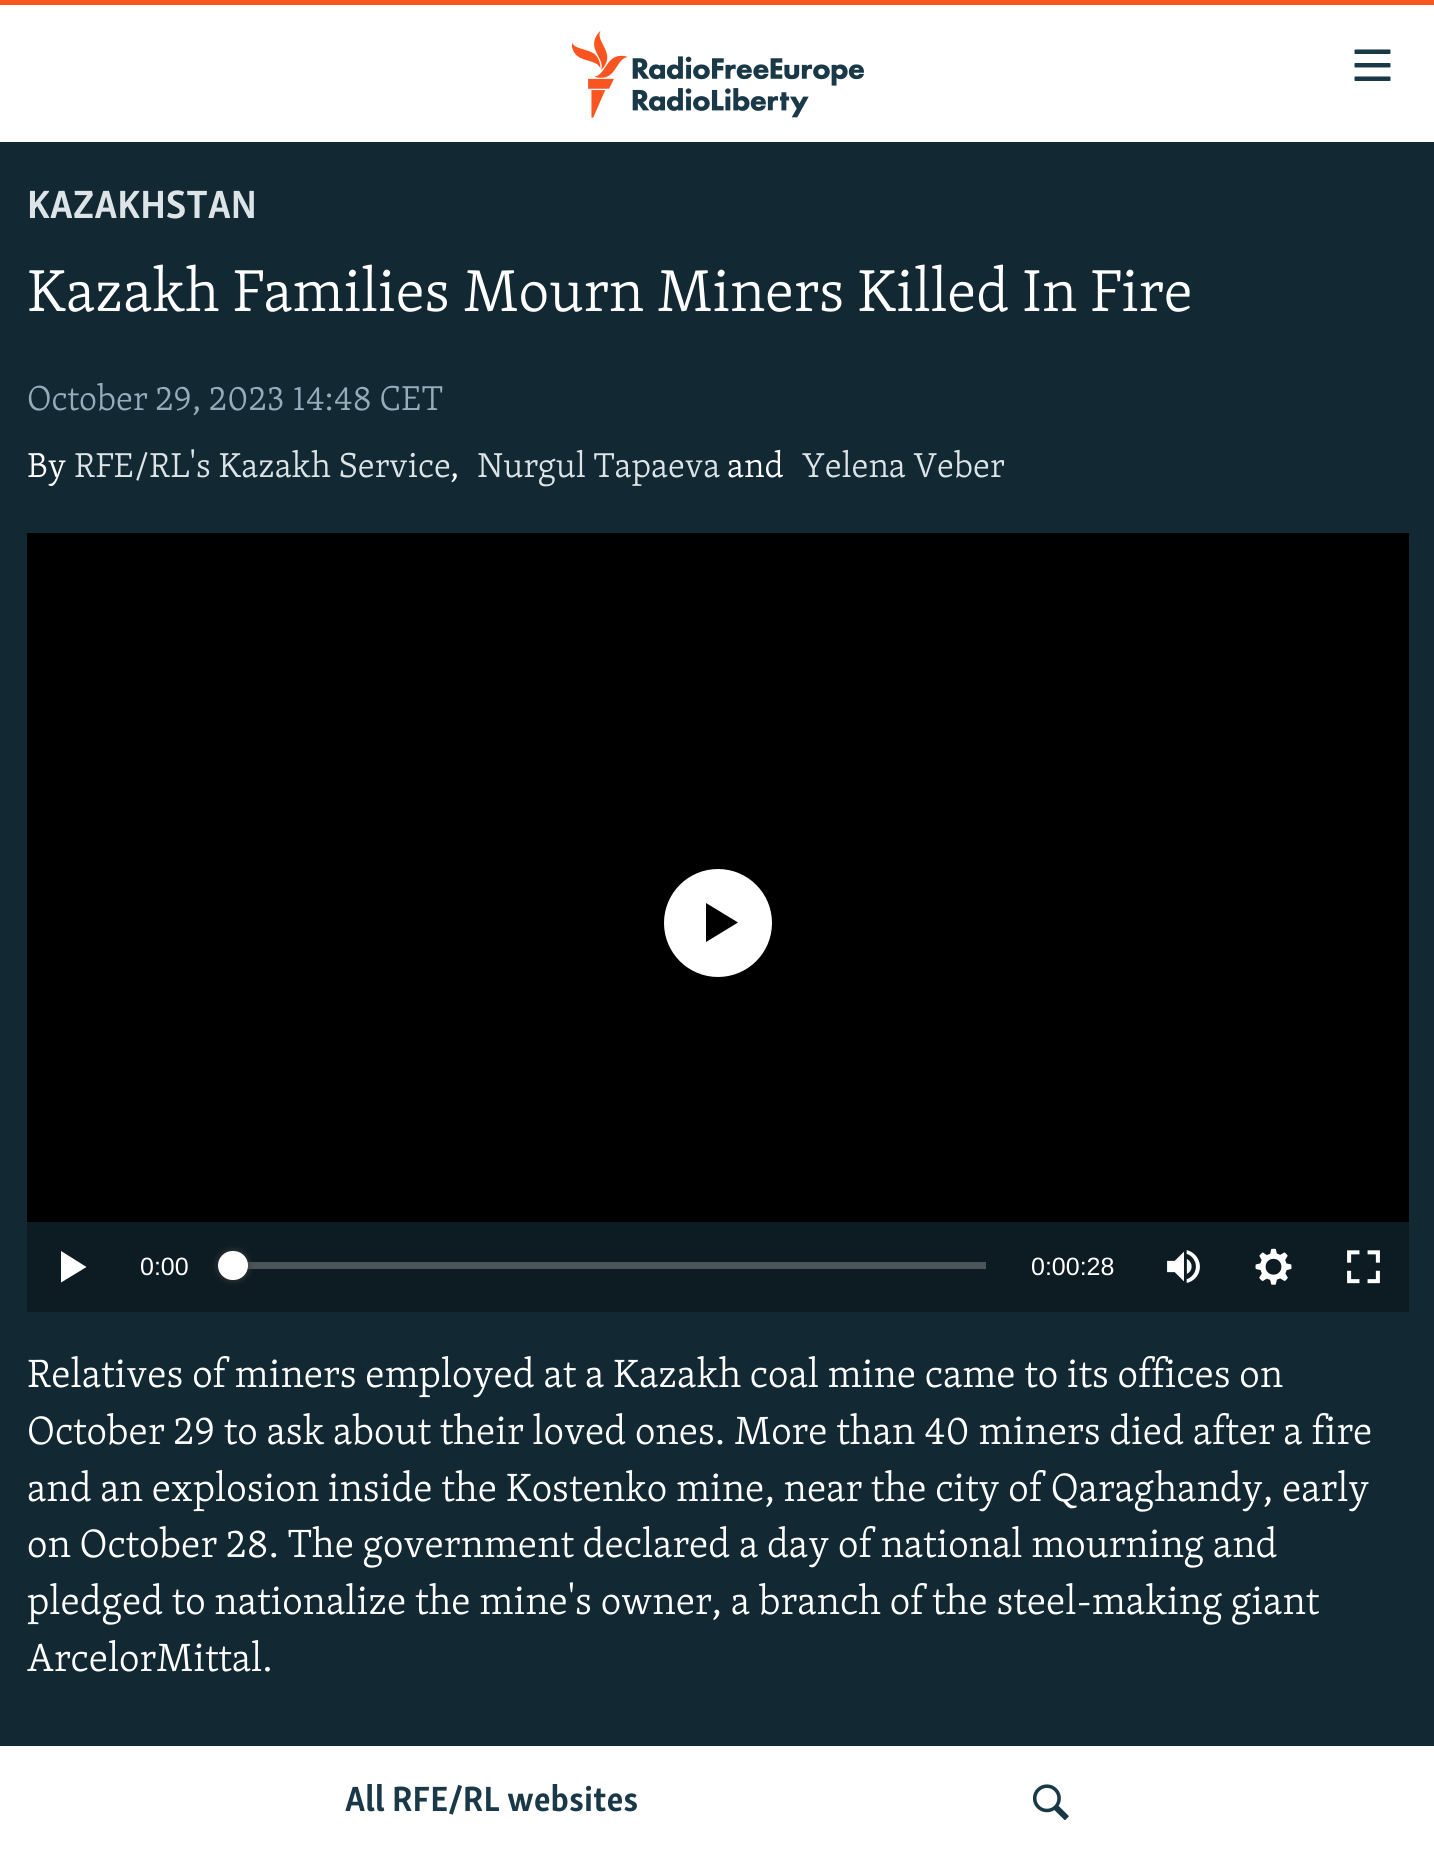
import math
import cairo


def round_path(ctx, x, y, w, h, r):
	ctx.new_sub_path()
	for i, (u, v) in enumerate([(x + w - r, y + h - r), (x + r, y + h - r), (x + r, y + r), (x + w - r, y + r)]):
		ctx.arc(u, v, r, i * math.pi / 2, (i + 1) * math.pi / 2)
	ctx.close_path()

def blur_box(ctx, x, y, w, h, r, blur, alpha):
	ctx.push_group_with_content(cairo.CONTENT_ALPHA)
	ctx.set_operator(cairo.OPERATOR_SOURCE)
	for i in range(15, -16, -2):
		e = blur * i / 6
		if min(w, h) + 2 * e > 0:
			ctx.set_source_rgba(0, 0, 0, alpha * math.erfc((i - 1) / 8.5) / 2)
			round_path(ctx, x - e, y - e, w + 2 * e, h + 2 * e, max(0, min(r + e + blur * .6, min(w, h) / 2 + e)))
			ctx.fill()
	ctx.mask(ctx.pop_group())

def paste(ctx, path, x, y, w, h):
	ctx.save()
	ctx.set_source_surface(cairo.ImageSurface.create_from_png(path), x, y)
	ctx.rectangle(x, y, w, h)
	ctx.fill()
	ctx.restore()

def draw(ctx):
	ctx.set_source_rgb(0.071, 0.157, 0.196)
	ctx.paint()
	ctx.select_font_face('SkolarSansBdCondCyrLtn', cairo.FONT_SLANT_NORMAL, cairo.FONT_WEIGHT_BOLD)
	ctx.set_font_size(40.5)
	ctx.set_source_rgb(0.863, 0.894, 0.91)
	ctx.move_to(27, 218)
	ctx.show_text('KAZAKHSTAN')
	ctx.select_font_face('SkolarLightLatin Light')
	ctx.set_font_size(60.75)
	ctx.set_source_rgb(1, 1, 1)
	ctx.move_to(27, 311)
	ctx.show_text('Kazakh Families Mourn Miners Killed In Fire')
	ctx.set_font_size(35.5)
	ctx.set_source_rgb(0.584, 0.678, 0.725)
	ctx.move_to(27, 410)
	ctx.show_text('October 29, 2023 14:48 CET')
	ctx.set_source_rgb(1, 1, 1)
	ctx.move_to(27, 477)
	ctx.show_text('By')
	ctx.set_source_rgb(0.863, 0.894, 0.91)
	ctx.move_to(74, 477)
	ctx.show_text('RFE/RL\'s Kazakh Service')
	ctx.set_source_rgb(1, 1, 1)
	ctx.move_to(450, 477)
	ctx.show_text(',')
	ctx.set_source_rgb(0.863, 0.894, 0.91)
	ctx.move_to(477, 477)
	ctx.show_text('Nurgul Tapaeva')
	ctx.set_source_rgb(1, 1, 1)
	ctx.move_to(727, 477)
	ctx.show_text('and')
	ctx.set_source_rgb(0.863, 0.894, 0.91)
	ctx.move_to(802, 477)
	ctx.show_text('Yelena Veber')
	ctx.set_source_rgb(0, 0, 0)
	ctx.rectangle(27, 533, 1382, 689)
	ctx.fill()
	ctx.set_source_rgb(1, 1, 1)
	ctx.arc(718, 923, 54, 0, 2 * math.pi)
	ctx.fill()
	ctx.set_source_rgb(0, 0, 0)
	ctx.new_path()
	ctx.move_to(706, 942)
	ctx.line_to(738, 922.5)
	ctx.line_to(706, 903)
	ctx.close_path()
	ctx.fill()
	ctx.set_source_rgb(0.051, 0.106, 0.133)
	ctx.rectangle(27, 1222, 1382, 90)
	ctx.fill()
	ctx.set_source_rgb(1, 1, 1)
	ctx.new_path()
	ctx.move_to(61, 1282.5)
	ctx.line_to(86.5, 1267)
	ctx.line_to(61, 1251)
	ctx.close_path()
	ctx.fill()
	ctx.select_font_face('Liberation Sans')
	ctx.set_font_size(25)
	ctx.move_to(140, 1275)
	ctx.show_text('0:00')
	ctx.set_source_rgb(0.29, 0.329, 0.349)
	ctx.rectangle(247, 1262, 739, 7)
	ctx.fill()
	ctx.set_source_rgb(0.255, 0.255, 0.267)
	blur_box(ctx, 218, 1251, 30, 29, 14.5, 3.5, 1)
	ctx.set_source_rgb(1, 1, 1)
	round_path(ctx, 218, 1251, 30, 29, 14.5)
	ctx.fill()
	ctx.move_to(1031, 1275)
	ctx.show_text('0:00:28')
	paste(ctx, 'media/1.png', 1167, 1250, 33, 33)
	paste(ctx, 'media/2.png', 1255, 1248, 37, 37)
	paste(ctx, 'media/3.png', 1347, 1250, 33, 34)
	ctx.select_font_face('SkolarLightLatin Light')
	ctx.set_font_size(40.5)
	for x, y, s in [
		(27, 1387, 'Relatives of miners employed at a Kazakh coal mine came to its offices on'),
		(27, 1444, 'October 29 to ask about their loved ones. More than 40 miners died after a fire'),
		(27, 1501, 'and an explosion inside the Kostenko mine, near the city of Qaraghandy, early'),
		(27, 1557, 'on October 28. The government declared a day of national mourning and'),
		(27, 1614, 'pledged to nationalize the mine\'s owner, a branch of the steel-making giant'),
		(27, 1671, 'ArcelorMittal.'),
	]:
		ctx.move_to(x, y)
		ctx.show_text(s)
	ctx.rectangle(0, 5, 1434, 137)
	ctx.fill()
	ctx.set_source_rgb(0.98, 0.329, 0.125)
	ctx.rectangle(0, 0, 1434, 5)
	ctx.fill()
	paste(ctx, 'media/4.png', 572, 31, 292, 87)
	paste(ctx, 'media/5.png', 1354, 49, 37, 32)
	ctx.set_source_rgb(1, 1, 1)
	ctx.rectangle(0, 1746, 1434, 112)
	ctx.fill()
	ctx.select_font_face('SkolarSansBdCondCyrLtn', cairo.FONT_SLANT_NORMAL, cairo.FONT_WEIGHT_BOLD)
	ctx.set_font_size(36)
	ctx.set_source_rgb(0.102, 0.224, 0.282)
	ctx.move_to(345, 1811)
	ctx.show_text('All RFE/RL websites')
	paste(ctx, 'media/6.png', 1032, 1784, 37, 37)


surface = cairo.ImageSurface(cairo.FORMAT_RGB24, 1434, 1858)
ctx = cairo.Context(surface)
options = cairo.FontOptions()
options.set_hint_metrics(cairo.HINT_METRICS_OFF)
options.set_hint_style(cairo.HINT_STYLE_NONE)
ctx.set_font_options(options)
ctx.set_miter_limit(4)
draw(ctx)
surface.write_to_png('image.png')
